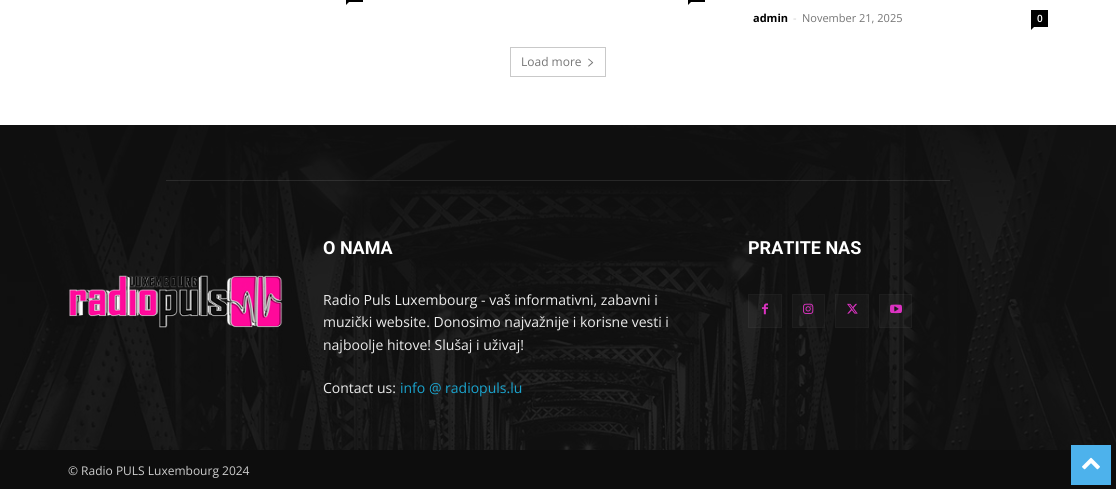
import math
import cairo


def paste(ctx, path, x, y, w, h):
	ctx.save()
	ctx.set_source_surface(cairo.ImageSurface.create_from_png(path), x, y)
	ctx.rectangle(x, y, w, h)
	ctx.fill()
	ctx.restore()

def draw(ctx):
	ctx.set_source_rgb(1, 1, 1)
	ctx.paint()
	ctx.set_source_rgb(0, 0, 0)
	ctx.rectangle(346, 0, 17, 2)
	ctx.fill()
	ctx.new_path()
	ctx.move_to(346, 2)
	ctx.line_to(349, 2)
	ctx.line_to(346, 5)
	ctx.close_path()
	ctx.fill()
	ctx.rectangle(688, 0, 17, 2)
	ctx.fill()
	ctx.new_path()
	ctx.move_to(688, 2)
	ctx.line_to(691, 2)
	ctx.line_to(688, 5)
	ctx.close_path()
	ctx.fill()
	ctx.select_font_face('Open Sans', cairo.FONT_SLANT_NORMAL, cairo.FONT_WEIGHT_BOLD)
	ctx.set_font_size(11)
	ctx.move_to(753, 22)
	ctx.show_text('admin')
	ctx.select_font_face('Open Sans')
	ctx.set_source_rgb(0.8, 0.8, 0.8)
	ctx.move_to(793, 22)
	ctx.show_text('-')
	ctx.set_source_rgb(0.463, 0.463, 0.463)
	ctx.move_to(802, 22)
	ctx.show_text('November 21, 2025')
	ctx.set_source_rgb(0, 0, 0)
	ctx.rectangle(1031, 10, 17, 17)
	ctx.fill()
	ctx.select_font_face('Open Sans SemiBold')
	ctx.set_font_size(10)
	ctx.set_source_rgb(1, 1, 1)
	ctx.move_to(1037, 22)
	ctx.show_text('0')
	ctx.set_source_rgb(0, 0, 0)
	ctx.new_path()
	ctx.move_to(1031, 27)
	ctx.line_to(1034, 27)
	ctx.line_to(1031, 30)
	ctx.close_path()
	ctx.fill()
	ctx.rectangle(510.5, 47.5, 95, 29)
	ctx.set_source_rgb(0.788, 0.788, 0.788)
	ctx.set_line_width(1)
	ctx.stroke()
	ctx.select_font_face('Open Sans')
	ctx.set_font_size(12)
	ctx.set_source_rgb(0.463, 0.463, 0.463)
	ctx.move_to(521, 66)
	ctx.show_text('Load more')
	paste(ctx, 'media/1.png', 588, 58, 6, 9)
	ctx.set_source_rgb(0.067, 0.067, 0.067)
	ctx.rectangle(0, 125, 1116, 325)
	ctx.fill()
	paste(ctx, 'media/2.png', 0, 125, 1116, 325)
	ctx.set_source_rgba(1, 1, 1, 0.1)
	ctx.rectangle(166, 180, 784, 1)
	ctx.fill()
	ctx.select_font_face('Roboto', cairo.FONT_SLANT_NORMAL, cairo.FONT_WEIGHT_BOLD)
	ctx.set_font_size(18)
	ctx.set_source_rgb(1, 1, 1)
	ctx.move_to(323, 254)
	ctx.show_text('O NAMA')
	ctx.select_font_face('Open Sans')
	ctx.set_font_size(14)
	ctx.set_source_rgb(0.918, 0.918, 0.918)
	for x, y, s in [
		(323, 305, 'Radio Puls Luxembourg - vaš informativni, zabavni i'),
		(323, 327, 'muzički website. Donosimo najvažnije i korisne vesti i'),
		(323, 350, 'najboolje hitove! Slušaj i uživaj!'),
		(323, 393, 'Contact us:'),
	]:
		ctx.move_to(x, y)
		ctx.show_text(s)
	ctx.set_source_rgb(0.102, 0.643, 0.808)
	ctx.move_to(400, 393)
	ctx.show_text('info @ radiopuls.lu')
	ctx.select_font_face('Roboto', cairo.FONT_SLANT_NORMAL, cairo.FONT_WEIGHT_BOLD)
	ctx.set_font_size(18)
	ctx.set_source_rgb(1, 1, 1)
	ctx.move_to(748, 254)
	ctx.show_text('PRATITE NAS')
	ctx.set_source_rgba(1, 1, 1, 0.03)
	ctx.rectangle(748, 294, 34, 34)
	ctx.fill()
	ctx.rectangle(748.5, 294.5, 33, 33)
	ctx.stroke()
	paste(ctx, 'media/3.png', 762, 303, 6, 12)
	ctx.rectangle(792, 294, 33, 34)
	ctx.fill()
	ctx.rectangle(792.5, 294.5, 32, 33)
	ctx.stroke()
	paste(ctx, 'media/4.png', 803, 303, 11, 11)
	ctx.rectangle(835, 294, 34, 34)
	ctx.fill()
	ctx.rectangle(835.5, 294.5, 33, 33)
	ctx.stroke()
	paste(ctx, 'media/5.png', 847, 303, 11, 11)
	ctx.rectangle(879, 294, 33, 34)
	ctx.fill()
	ctx.rectangle(879.5, 294.5, 32, 33)
	ctx.stroke()
	paste(ctx, 'media/6.png', 890, 304, 12, 10)
	paste(ctx, 'media/7.png', 69, 275, 214, 53)
	ctx.set_source_rgb(0.051, 0.051, 0.051)
	ctx.rectangle(0, 450, 1116, 39)
	ctx.fill()
	ctx.select_font_face('Open Sans')
	ctx.set_font_size(12)
	ctx.set_source_rgb(0.8, 0.8, 0.8)
	ctx.move_to(68, 475)
	ctx.show_text('© Radio PULS Luxembourg 2024')
	ctx.set_source_rgb(0.302, 0.698, 0.925)
	ctx.rectangle(1071, 445, 40, 40)
	ctx.fill()
	paste(ctx, 'media/8.png', 1082, 457, 18, 13)


surface = cairo.ImageSurface(cairo.FORMAT_RGB24, 1116, 489)
ctx = cairo.Context(surface)
options = cairo.FontOptions()
options.set_hint_metrics(cairo.HINT_METRICS_OFF)
options.set_hint_style(cairo.HINT_STYLE_NONE)
ctx.set_font_options(options)
ctx.set_miter_limit(4)
draw(ctx)
surface.write_to_png('image.png')
